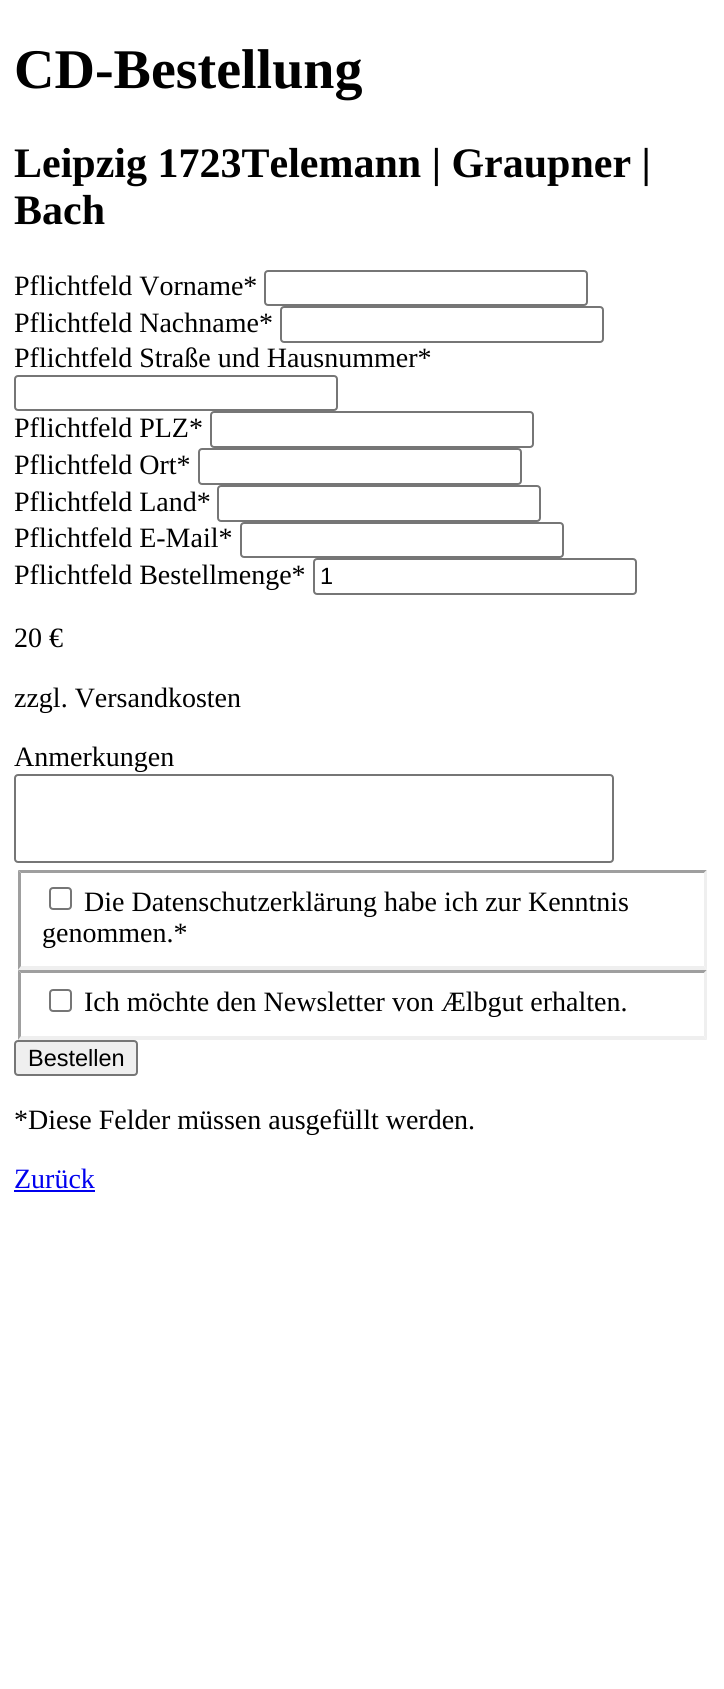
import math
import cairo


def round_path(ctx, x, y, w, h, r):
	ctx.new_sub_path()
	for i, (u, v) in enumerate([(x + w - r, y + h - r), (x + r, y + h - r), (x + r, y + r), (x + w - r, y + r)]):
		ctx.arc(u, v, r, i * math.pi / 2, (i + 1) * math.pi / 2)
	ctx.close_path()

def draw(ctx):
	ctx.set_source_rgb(1, 1, 1)
	ctx.paint()
	ctx.select_font_face('Liberation Serif', cairo.FONT_SLANT_NORMAL, cairo.FONT_WEIGHT_BOLD)
	ctx.set_font_size(56)
	ctx.set_source_rgb(0, 0, 0)
	ctx.move_to(14, 88)
	ctx.show_text('CD-Bestellung')
	ctx.set_font_size(42)
	ctx.move_to(14, 177)
	ctx.show_text('Leipzig 1723Telemann | Graupner |')
	ctx.move_to(14, 224)
	ctx.show_text('Bach')
	ctx.select_font_face('Liberation Serif')
	ctx.set_font_size(28)
	ctx.move_to(14, 295)
	ctx.show_text('Pflichtfeld Vorname*')
	round_path(ctx, 265, 271, 322, 34, 3)
	ctx.set_source_rgb(0.463, 0.463, 0.463)
	ctx.stroke()
	ctx.set_source_rgb(0, 0, 0)
	ctx.move_to(14, 332)
	ctx.show_text('Pflichtfeld Nachname*')
	round_path(ctx, 281, 307, 322, 35, 3)
	ctx.set_source_rgb(0.463, 0.463, 0.463)
	ctx.stroke()
	ctx.set_source_rgb(0, 0, 0)
	ctx.move_to(14, 367)
	ctx.show_text('Pflichtfeld Straße und Hausnummer*')
	round_path(ctx, 15, 376, 322, 34, 3)
	ctx.set_source_rgb(0.463, 0.463, 0.463)
	ctx.stroke()
	ctx.set_source_rgb(0, 0, 0)
	ctx.move_to(14, 437)
	ctx.show_text('Pflichtfeld PLZ*')
	round_path(ctx, 211, 412, 322, 35, 3)
	ctx.set_source_rgb(0.463, 0.463, 0.463)
	ctx.stroke()
	ctx.set_source_rgb(0, 0, 0)
	ctx.move_to(14, 474)
	ctx.show_text('Pflichtfeld Ort*')
	round_path(ctx, 199, 449, 322, 35, 3)
	ctx.set_source_rgb(0.463, 0.463, 0.463)
	ctx.stroke()
	ctx.set_source_rgb(0, 0, 0)
	ctx.move_to(14, 511)
	ctx.show_text('Pflichtfeld Land*')
	round_path(ctx, 218, 486, 322, 35, 3)
	ctx.set_source_rgb(0.463, 0.463, 0.463)
	ctx.stroke()
	ctx.set_source_rgb(0, 0, 0)
	ctx.move_to(14, 547)
	ctx.show_text('Pflichtfeld E-Mail*')
	round_path(ctx, 241, 523, 322, 34, 3)
	ctx.set_source_rgb(0.463, 0.463, 0.463)
	ctx.stroke()
	ctx.set_source_rgb(0, 0, 0)
	ctx.move_to(14, 584)
	ctx.show_text('Pflichtfeld Bestellmenge*')
	round_path(ctx, 314, 559, 322, 35, 3)
	ctx.set_source_rgb(0.463, 0.463, 0.463)
	ctx.stroke()
	ctx.select_font_face('Liberation Sans')
	ctx.set_font_size(23.5)
	ctx.set_source_rgb(0, 0, 0)
	ctx.move_to(320, 584)
	ctx.show_text('1')
	ctx.select_font_face('Liberation Serif')
	ctx.set_font_size(28)
	for x, y, s in [
		(14, 647, '20 €'),
		(14, 707, 'zzgl. Versandkosten'),
		(14, 766, 'Anmerkungen'),
	]:
		ctx.move_to(x, y)
		ctx.show_text(s)
	round_path(ctx, 15, 775, 598, 87, 3)
	ctx.set_source_rgb(0.463, 0.463, 0.463)
	ctx.stroke()
	ctx.set_source_rgb(0.624, 0.624, 0.624)
	ctx.new_path()
	ctx.move_to(18, 870)
	ctx.line_to(707, 870)
	ctx.line_to(704, 873)
	ctx.line_to(21, 873)
	ctx.close_path()
	ctx.fill()
	ctx.set_source_rgb(0.937, 0.937, 0.937)
	ctx.new_path()
	ctx.move_to(707, 870)
	ctx.line_to(707, 970)
	ctx.line_to(704, 966)
	ctx.line_to(704, 873)
	ctx.close_path()
	ctx.fill()
	ctx.new_path()
	ctx.move_to(707, 970)
	ctx.line_to(18, 970)
	ctx.line_to(21, 966)
	ctx.line_to(704, 966)
	ctx.close_path()
	ctx.fill()
	ctx.set_source_rgb(0.624, 0.624, 0.624)
	ctx.new_path()
	ctx.move_to(18, 970)
	ctx.line_to(18, 870)
	ctx.line_to(21, 873)
	ctx.line_to(21, 966)
	ctx.close_path()
	ctx.fill()
	round_path(ctx, 50, 888, 21, 21, 3)
	ctx.set_source_rgb(0.463, 0.463, 0.463)
	ctx.stroke()
	ctx.set_source_rgb(0, 0, 0)
	ctx.move_to(84, 911)
	ctx.show_text('Die Datenschutzerklärung habe ich zur Kenntnis')
	ctx.move_to(42, 942)
	ctx.show_text('genommen.*')
	ctx.set_source_rgb(0.624, 0.624, 0.624)
	ctx.new_path()
	ctx.move_to(18, 970)
	ctx.line_to(707, 970)
	ctx.line_to(704, 973)
	ctx.line_to(21, 973)
	ctx.close_path()
	ctx.fill()
	ctx.set_source_rgb(0.937, 0.937, 0.937)
	ctx.new_path()
	ctx.move_to(707, 970)
	ctx.line_to(707, 1040)
	ctx.line_to(704, 1036)
	ctx.line_to(704, 973)
	ctx.close_path()
	ctx.fill()
	ctx.new_path()
	ctx.move_to(707, 1040)
	ctx.line_to(18, 1040)
	ctx.line_to(21, 1036)
	ctx.line_to(704, 1036)
	ctx.close_path()
	ctx.fill()
	ctx.set_source_rgb(0.624, 0.624, 0.624)
	ctx.new_path()
	ctx.move_to(18, 1040)
	ctx.line_to(18, 970)
	ctx.line_to(21, 973)
	ctx.line_to(21, 1036)
	ctx.close_path()
	ctx.fill()
	round_path(ctx, 50, 990, 21, 21, 3)
	ctx.set_source_rgb(0.463, 0.463, 0.463)
	ctx.stroke()
	ctx.set_source_rgb(0, 0, 0)
	ctx.move_to(84, 1011)
	ctx.show_text('Ich möchte den Newsletter von Ælbgut erhalten.')
	ctx.set_source_rgb(0.937, 0.937, 0.937)
	round_path(ctx, 15, 1041, 122, 34, 3)
	ctx.fill_preserve()
	ctx.set_source_rgb(0.463, 0.463, 0.463)
	ctx.stroke()
	ctx.select_font_face('Liberation Sans')
	ctx.set_font_size(23.5)
	ctx.set_source_rgb(0, 0, 0)
	ctx.move_to(28, 1066)
	ctx.show_text('Bestellen')
	ctx.select_font_face('Liberation Serif')
	ctx.set_font_size(28)
	ctx.move_to(14, 1129)
	ctx.show_text('*Diese Felder müssen ausgefüllt werden.')
	ctx.set_source_rgb(0, 0, 0.933)
	ctx.move_to(14, 1188)
	ctx.show_text('Zurück')
	ctx.rectangle(14, 1190, 81, 2)
	ctx.fill()


surface = cairo.ImageSurface(cairo.FORMAT_RGB24, 724, 1689)
ctx = cairo.Context(surface)
options = cairo.FontOptions()
options.set_hint_metrics(cairo.HINT_METRICS_OFF)
options.set_hint_style(cairo.HINT_STYLE_NONE)
ctx.set_font_options(options)
ctx.set_miter_limit(4)
draw(ctx)
surface.write_to_png('image.png')
